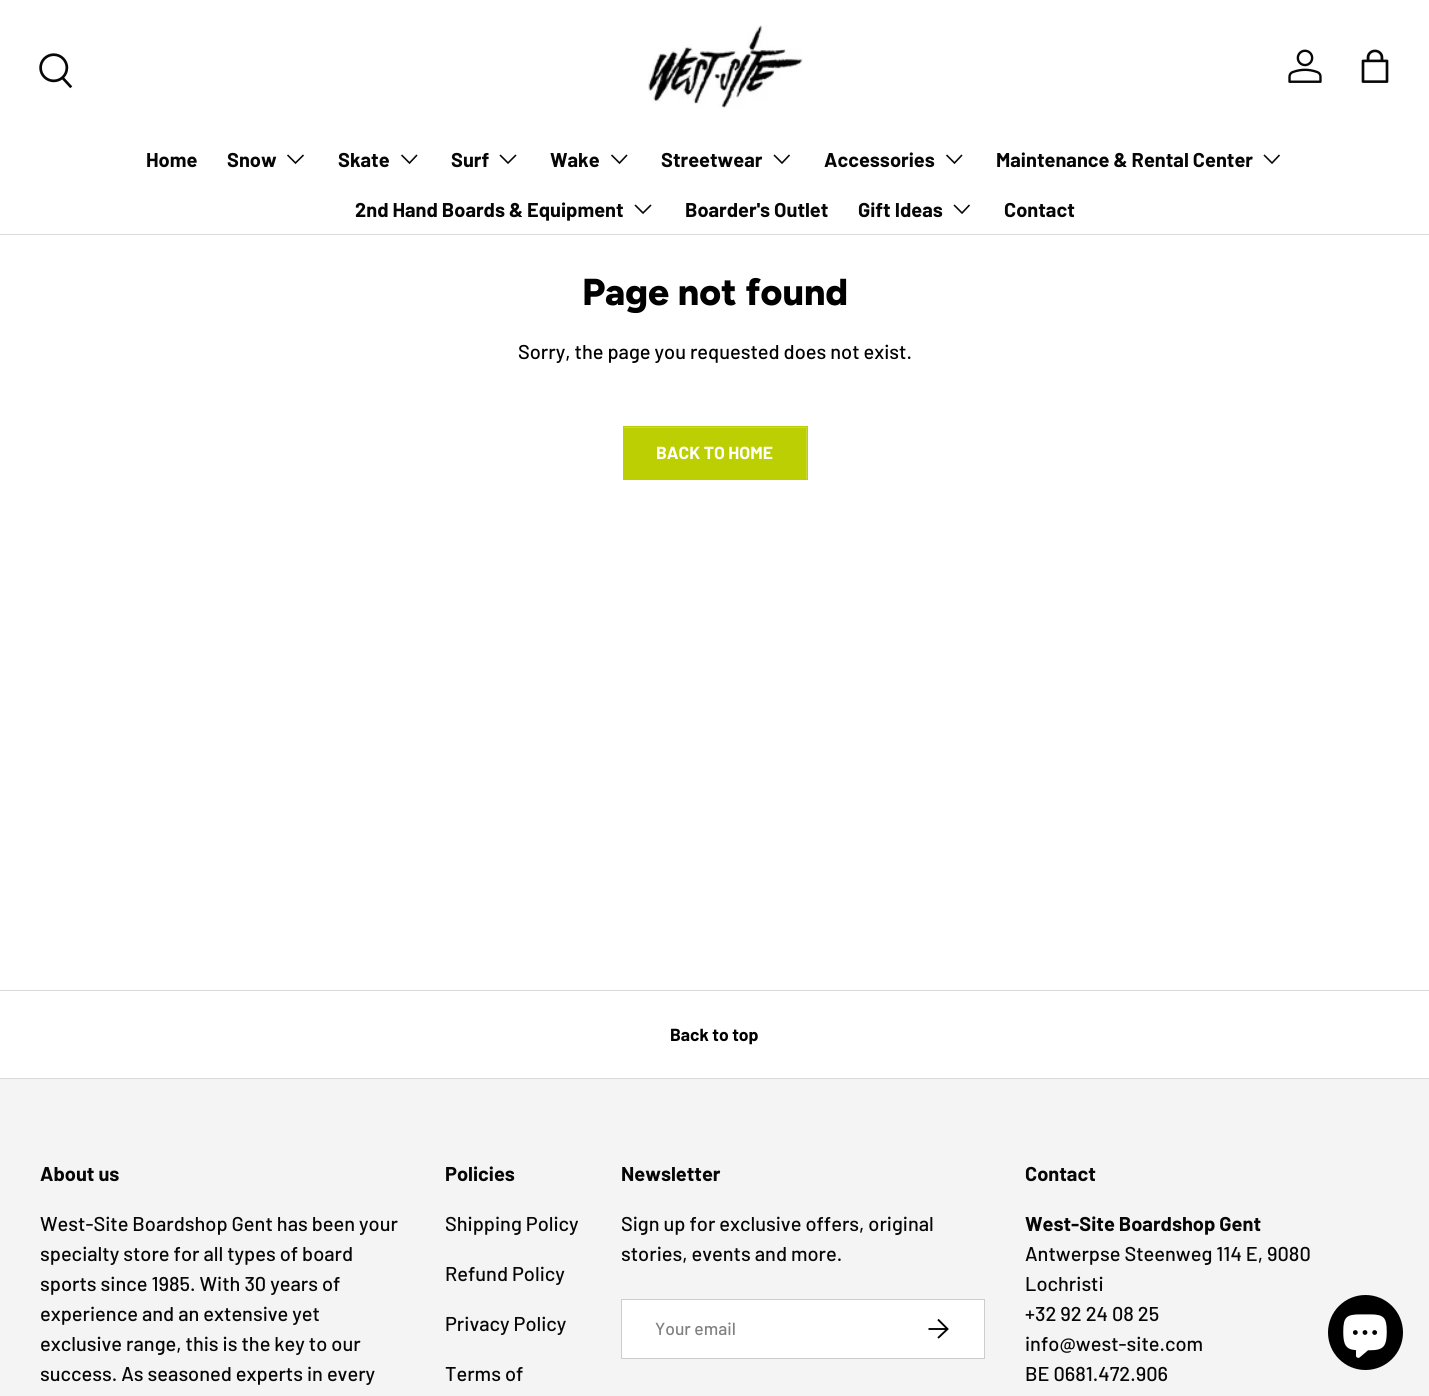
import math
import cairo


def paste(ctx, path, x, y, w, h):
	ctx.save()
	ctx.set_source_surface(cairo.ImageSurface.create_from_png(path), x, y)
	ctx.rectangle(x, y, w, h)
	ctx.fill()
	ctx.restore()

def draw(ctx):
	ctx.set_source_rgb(1, 1, 1)
	ctx.paint()
	ctx.set_source_rgb(0.855, 0.855, 0.855)
	ctx.rectangle(0, 234, 1429, 1)
	ctx.fill()
	paste(ctx, 'media/1.png', 39, 53, 34, 36)
	paste(ctx, 'media/2.png', 648, 25, 155, 83)
	paste(ctx, 'media/3.png', 1288, 49, 34, 34)
	paste(ctx, 'media/4.png', 1361, 49, 28, 34)
	ctx.select_font_face('Barlow', cairo.FONT_SLANT_NORMAL, cairo.FONT_WEIGHT_BOLD)
	ctx.set_font_size(20)
	ctx.set_source_rgb(0.027, 0.027, 0.027)
	ctx.move_to(146, 167)
	ctx.show_text('Home')
	ctx.move_to(227, 167)
	ctx.show_text('Snow')
	ctx.new_path()
	ctx.move_to(303.5, 155)
	ctx.line_to(295.5, 163)
	ctx.line_to(287.5, 155)
	ctx.set_line_width(1.6)
	ctx.stroke()
	ctx.move_to(338, 167)
	ctx.show_text('Skate')
	ctx.new_path()
	ctx.move_to(417, 155)
	ctx.line_to(409.5, 163)
	ctx.line_to(401.5, 155)
	ctx.stroke()
	ctx.move_to(451, 167)
	ctx.show_text('Surf')
	ctx.new_path()
	ctx.move_to(516, 155)
	ctx.line_to(508, 163)
	ctx.line_to(500, 155)
	ctx.stroke()
	ctx.move_to(550, 167)
	ctx.show_text('Wake')
	ctx.new_path()
	ctx.move_to(627, 155)
	ctx.line_to(619.5, 163)
	ctx.line_to(611.5, 155)
	ctx.stroke()
	ctx.move_to(661, 167)
	ctx.show_text('Streetwear')
	ctx.new_path()
	ctx.move_to(789.5, 155)
	ctx.line_to(782, 163)
	ctx.line_to(774, 155)
	ctx.stroke()
	ctx.move_to(824, 167)
	ctx.show_text('Accessories')
	ctx.new_path()
	ctx.move_to(962, 155)
	ctx.line_to(954.5, 163)
	ctx.line_to(946.5, 155)
	ctx.stroke()
	ctx.move_to(996, 167)
	ctx.show_text('Maintenance & Rental Center')
	ctx.new_path()
	ctx.move_to(1279.5, 155)
	ctx.line_to(1272, 163)
	ctx.line_to(1264, 155)
	ctx.stroke()
	ctx.move_to(355, 217)
	ctx.show_text('2nd Hand Boards & Equipment')
	ctx.new_path()
	ctx.move_to(651, 205)
	ctx.line_to(643, 213)
	ctx.line_to(635, 205)
	ctx.stroke()
	ctx.move_to(685, 217)
	ctx.show_text('Boarder\'s Outlet')
	ctx.move_to(858, 217)
	ctx.show_text('Gift Ideas')
	ctx.new_path()
	ctx.move_to(969.5, 205)
	ctx.line_to(962, 213)
	ctx.line_to(954, 205)
	ctx.stroke()
	ctx.move_to(1004, 217)
	ctx.show_text('Contact')
	ctx.select_font_face('Figtree ExtraBold')
	ctx.set_font_size(37.5)
	ctx.set_source_rgb(0, 0, 0)
	ctx.move_to(582, 305)
	ctx.show_text('Page not found')
	ctx.select_font_face('Barlow Medium')
	ctx.set_font_size(20)
	ctx.move_to(518, 359)
	ctx.show_text('Sorry, the page you requested does not exist.')
	ctx.set_source_rgb(0.792, 0.851, 0.204)
	ctx.rectangle(624, 427, 183, 52)
	ctx.fill()
	gradient = cairo.LinearGradient(269, 387, 796, 519)
	gradient.add_color_stop_rgba(0.6, 0.792, 0.851, 0.204, 1)
	gradient.add_color_stop_rgba(0.6, 0.737, 0.812, 0.008, 1)
	gradient.add_color_stop_rgba(1, 0.737, 0.812, 0.008, 1)
	ctx.set_source(gradient)
	ctx.rectangle(624, 428, 182, 51)
	ctx.fill()
	ctx.rectangle(623.5, 426.5, 184, 53)
	ctx.set_source_rgb(0.737, 0.812, 0.008)
	ctx.set_line_width(1)
	ctx.stroke()
	ctx.select_font_face('Barlow', cairo.FONT_SLANT_NORMAL, cairo.FONT_WEIGHT_BOLD)
	ctx.set_font_size(17.5)
	ctx.set_source_rgb(1, 1, 1)
	ctx.move_to(656, 459)
	ctx.show_text('BACK TO HOME')
	ctx.set_source_rgb(0.851, 0.851, 0.851)
	ctx.rectangle(0, 990, 1429, 1)
	ctx.fill()
	ctx.rectangle(0, 1078, 1429, 1)
	ctx.fill()
	ctx.set_source_rgb(0, 0, 0)
	ctx.move_to(670, 1041)
	ctx.show_text('Back to top')
	ctx.set_source_rgb(0.957, 0.957, 0.957)
	ctx.rectangle(0, 1079, 1429, 317)
	ctx.fill()
	ctx.set_font_size(20)
	ctx.set_source_rgb(0.027, 0.027, 0.027)
	ctx.move_to(40, 1181)
	ctx.show_text('About us')
	ctx.select_font_face('Barlow Medium')
	for x, y, s in [
		(40, 1231, 'West-Site Boardshop Gent has been your'),
		(40, 1261, 'specialty store for all types of board'),
		(40, 1291, 'sports since 1985. With 30 years of'),
		(40, 1321, 'experience and an extensive yet'),
		(40, 1351, 'exclusive range, this is the key to our'),
		(40, 1381, 'success. As seasoned experts in every'),
	]:
		ctx.move_to(x, y)
		ctx.show_text(s)
	ctx.select_font_face('Barlow', cairo.FONT_SLANT_NORMAL, cairo.FONT_WEIGHT_BOLD)
	ctx.move_to(445, 1181)
	ctx.show_text('Policies')
	ctx.select_font_face('Barlow Medium')
	for x, y, s in [
		(445, 1231, 'Shipping Policy'),
		(445, 1281, 'Refund Policy'),
		(445, 1331, 'Privacy Policy'),
		(445, 1381, 'Terms of'),
	]:
		ctx.move_to(x, y)
		ctx.show_text(s)
	ctx.select_font_face('Barlow', cairo.FONT_SLANT_NORMAL, cairo.FONT_WEIGHT_BOLD)
	ctx.move_to(621, 1181)
	ctx.show_text('Newsletter')
	ctx.select_font_face('Barlow Medium')
	ctx.move_to(621, 1231)
	ctx.show_text('Sign up for exclusive offers, original')
	ctx.move_to(621, 1261)
	ctx.show_text('stories, events and more.')
	ctx.set_source_rgb(1, 1, 1)
	ctx.rectangle(621.5, 1299.5, 363, 59)
	ctx.fill_preserve()
	ctx.set_source_rgb(0.804, 0.804, 0.804)
	ctx.stroke()
	ctx.set_font_size(17.5)
	ctx.set_source_rgb(0.502, 0.502, 0.502)
	ctx.move_to(655, 1335)
	ctx.show_text('Your email')
	ctx.new_path()
	ctx.move_to(928.5, 1329)
	ctx.line_to(946.5, 1329)
	ctx.move_to(938, 1319.5)
	ctx.line_to(947.5, 1329)
	ctx.line_to(938, 1338)
	ctx.set_source_rgb(0, 0, 0)
	ctx.set_line_width(1.9)
	ctx.stroke()
	ctx.select_font_face('Barlow', cairo.FONT_SLANT_NORMAL, cairo.FONT_WEIGHT_BOLD)
	ctx.set_font_size(20)
	ctx.set_source_rgb(0.027, 0.027, 0.027)
	ctx.move_to(1025, 1181)
	ctx.show_text('Contact')
	ctx.move_to(1025, 1231)
	ctx.show_text('West-Site Boardshop Gent')
	ctx.select_font_face('Barlow Medium')
	for x, y, s in [
		(1025, 1261, 'Antwerpse Steenweg 114 E, 9080'),
		(1025, 1291, 'Lochristi'),
		(1025, 1321, '+32 92 24 08 25'),
		(1025, 1351, 'info@west-site.com'),
		(1025, 1381, 'BE 0681.472.906'),
	]:
		ctx.move_to(x, y)
		ctx.show_text(s)
	ctx.set_source_rgb(0, 0, 0)
	ctx.new_path()
	ctx.arc(1365.5, 1332.5, 37.5, 0, 2 * math.pi)
	ctx.fill()
	paste(ctx, 'media/5.png', 1343, 1314, 44, 44)


surface = cairo.ImageSurface(cairo.FORMAT_RGB24, 1429, 1396)
ctx = cairo.Context(surface)
options = cairo.FontOptions()
options.set_hint_metrics(cairo.HINT_METRICS_OFF)
options.set_hint_style(cairo.HINT_STYLE_NONE)
ctx.set_font_options(options)
ctx.set_miter_limit(4)
draw(ctx)
surface.write_to_png('image.png')
